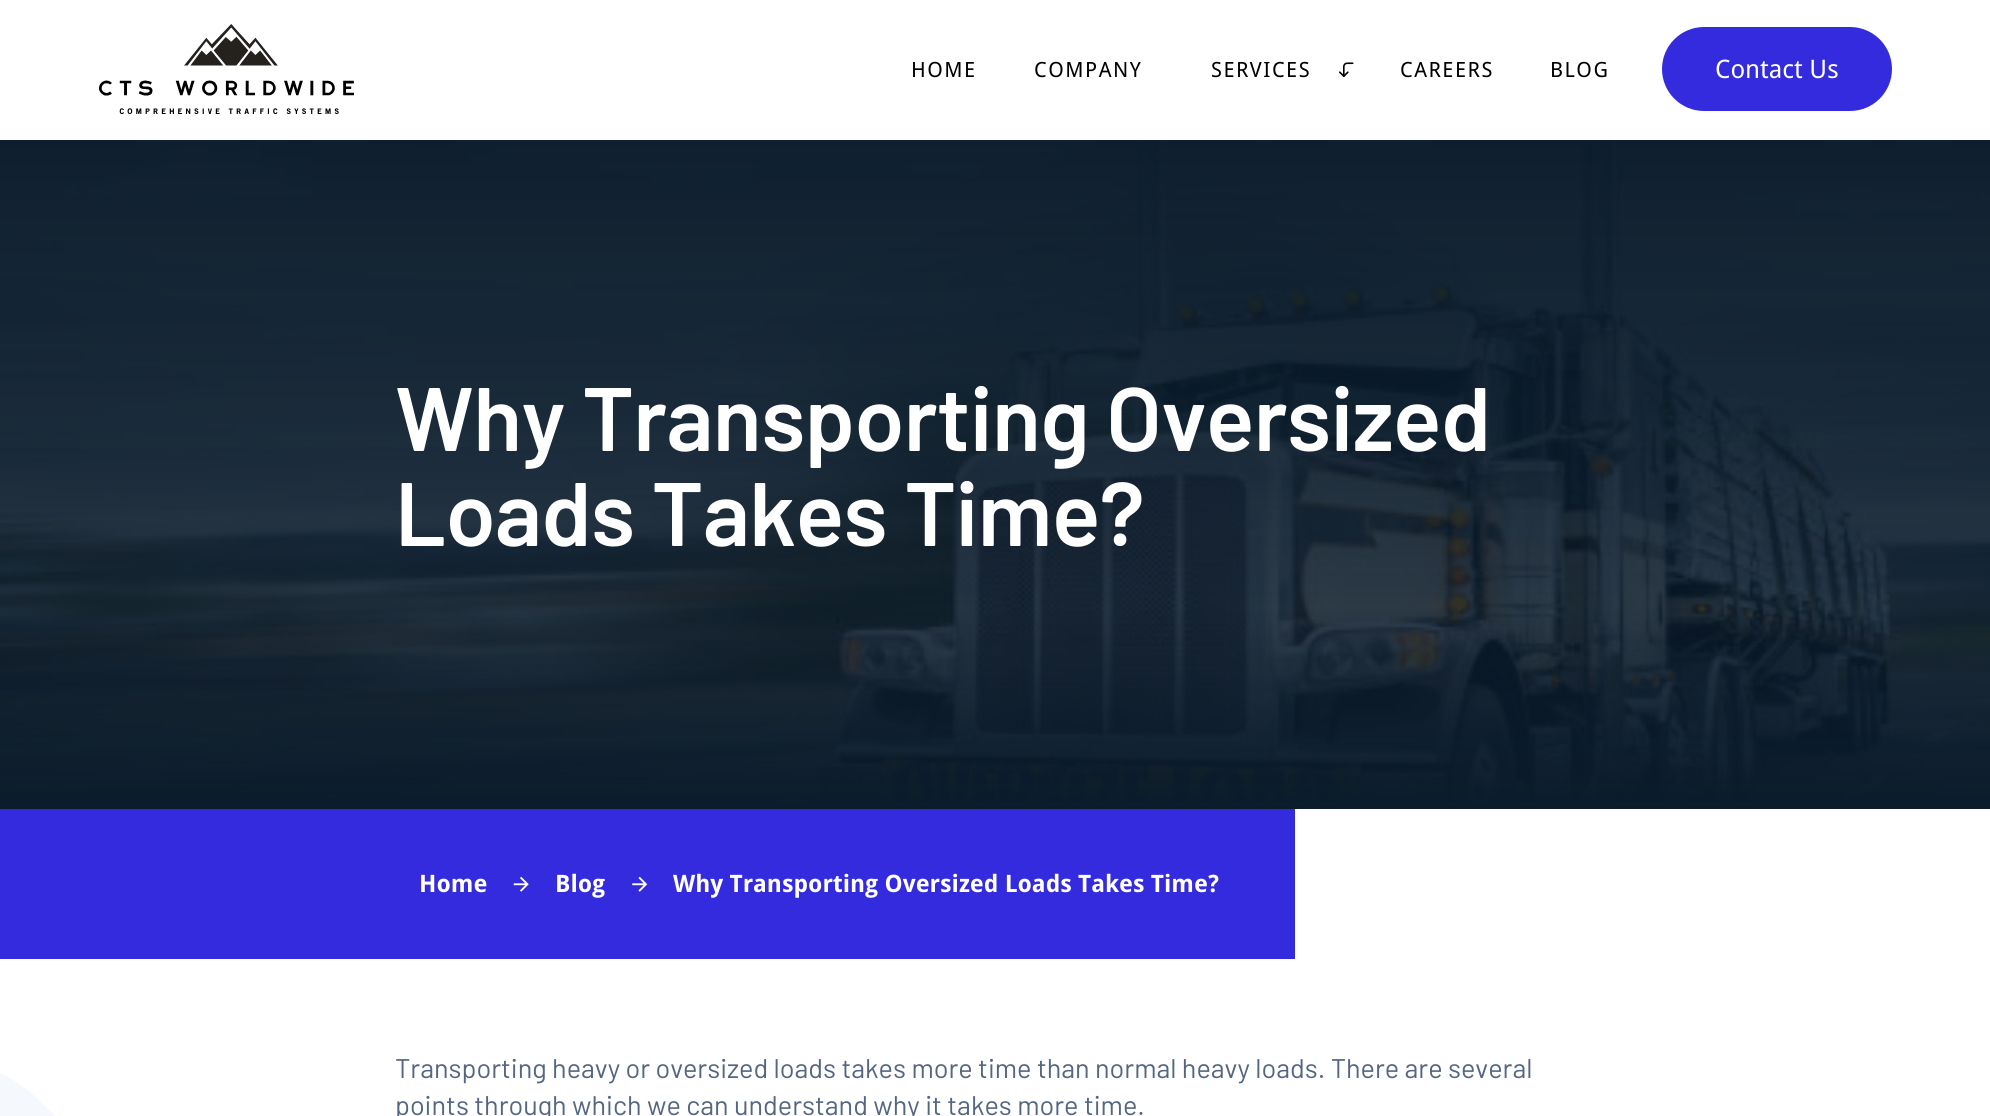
import math
import cairo


def write_spaced(ctx, x, y, s, letter, word):
	ctx.move_to(x, y)
	for ch in s:
		ctx.show_text(ch)
		ctx.rel_move_to(letter + word * (ch == ' '), 0)

def round_path(ctx, x, y, w, h, r):
	ctx.new_sub_path()
	for i, (u, v) in enumerate([(x + w - r, y + h - r), (x + r, y + h - r), (x + r, y + r), (x + w - r, y + r)]):
		ctx.arc(u, v, r, i * math.pi / 2, (i + 1) * math.pi / 2)
	ctx.close_path()

def paste(ctx, path, x, y, w, h):
	ctx.save()
	ctx.set_source_surface(cairo.ImageSurface.create_from_png(path), x, y)
	ctx.rectangle(x, y, w, h)
	ctx.fill()
	ctx.restore()

def draw(ctx):
	ctx.set_source_rgb(1, 1, 1)
	ctx.paint()
	paste(ctx, 'media/1.png', 99, 24, 255, 90)
	ctx.select_font_face('Droid Sans')
	ctx.set_font_size(21)
	ctx.set_source_rgb(0, 0, 0)
	for x, y, s in [
		(911, 77, 'HOME'),
		(1034, 77, 'COMPANY'),
		(1211, 77, 'SERVICES'),
	]:
		write_spaced(ctx, x, y, s, 1.5, 0)
	paste(ctx, 'media/2.png', 1339, 62, 15, 15)
	write_spaced(ctx, 1400, 77, 'CAREERS', 1.5, 0)
	write_spaced(ctx, 1550, 77, 'BLOG', 1.5, 0)
	ctx.set_source_rgb(0.204, 0.169, 0.875)
	round_path(ctx, 1662, 27, 230, 84, 42)
	ctx.fill()
	ctx.set_font_size(25.5)
	ctx.set_source_rgb(1, 1, 1)
	ctx.move_to(1715, 78)
	ctx.show_text('Contact Us')
	paste(ctx, 'media/3.png', 0, 140, 1990, 662)
	gradient = cairo.LinearGradient(995, 139, 995, 809)
	gradient.add_color_stop_rgba(0, 0.039, 0.106, 0.169, 0.98)
	gradient.add_color_stop_rgba(0.41, 0.039, 0.106, 0.169, 0.92)
	gradient.add_color_stop_rgba(0.7, 0.039, 0.106, 0.169, 0.84)
	gradient.add_color_stop_rgba(1, 0.039, 0.106, 0.169, 1)
	ctx.set_source(gradient)
	ctx.rectangle(0, 140, 1990, 669)
	ctx.fill()
	ctx.select_font_face('Barlow SemiBold')
	ctx.set_font_size(90)
	ctx.set_source_rgb(1, 1, 1)
	write_spaced(ctx, 395, 451, 'Why Transporting Oversized', -0.75, 0)
	write_spaced(ctx, 395, 546, 'Loads Takes Time?', -0.75, 0)
	ctx.set_source_rgb(0.204, 0.169, 0.875)
	ctx.rectangle(0, 809, 1295, 150)
	ctx.fill()
	ctx.select_font_face('Droid Sans', cairo.FONT_SLANT_NORMAL, cairo.FONT_WEIGHT_BOLD)
	ctx.set_font_size(24)
	ctx.set_source_rgb(1, 1, 1)
	ctx.move_to(419, 892)
	ctx.show_text('Home')
	paste(ctx, 'media/4.png', 513, 876, 16, 16)
	ctx.move_to(555, 892)
	ctx.show_text('Blog')
	paste(ctx, 'media/5.png', 632, 876, 16, 16)
	ctx.move_to(673, 892)
	ctx.show_text('Why Transporting Oversized Loads Takes Time?')
	gradient = cairo.LinearGradient(121, 1091, 479, 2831)
	gradient.add_color_stop_rgba(0, 0.961, 0.973, 0.992, 1)
	gradient.add_color_stop_rgba(1, 1, 1, 1, 1)
	ctx.set_source(gradient)
	ctx.new_path()
	ctx.move_to(42, 1103)
	ctx.line_to(1157, 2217)
	ctx.curve_to(1218, 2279, 1218, 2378, 1157, 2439)
	ctx.line_to(42, 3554)
	ctx.curve_to(-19, 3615, -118, 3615, -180, 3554)
	ctx.line_to(-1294, 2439)
	ctx.curve_to(-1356, 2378, -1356, 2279, -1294, 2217)
	ctx.line_to(-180, 1103)
	ctx.curve_to(-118, 1042, -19, 1042, 42, 1103)
	ctx.close_path()
	ctx.fill()
	ctx.select_font_face('Barlow')
	ctx.set_font_size(27)
	ctx.set_source_rgb(0.329, 0.4, 0.506)
	ctx.move_to(395, 1078)
	ctx.show_text('Transporting heavy or oversized loads takes more time than normal heavy loads. There are several')
	ctx.move_to(395, 1115)
	ctx.show_text('points through which we can understand why it takes more time.')


surface = cairo.ImageSurface(cairo.FORMAT_RGB24, 1990, 1116)
ctx = cairo.Context(surface)
options = cairo.FontOptions()
options.set_hint_metrics(cairo.HINT_METRICS_OFF)
options.set_hint_style(cairo.HINT_STYLE_NONE)
ctx.set_font_options(options)
ctx.set_miter_limit(4)
draw(ctx)
surface.write_to_png('image.png')
